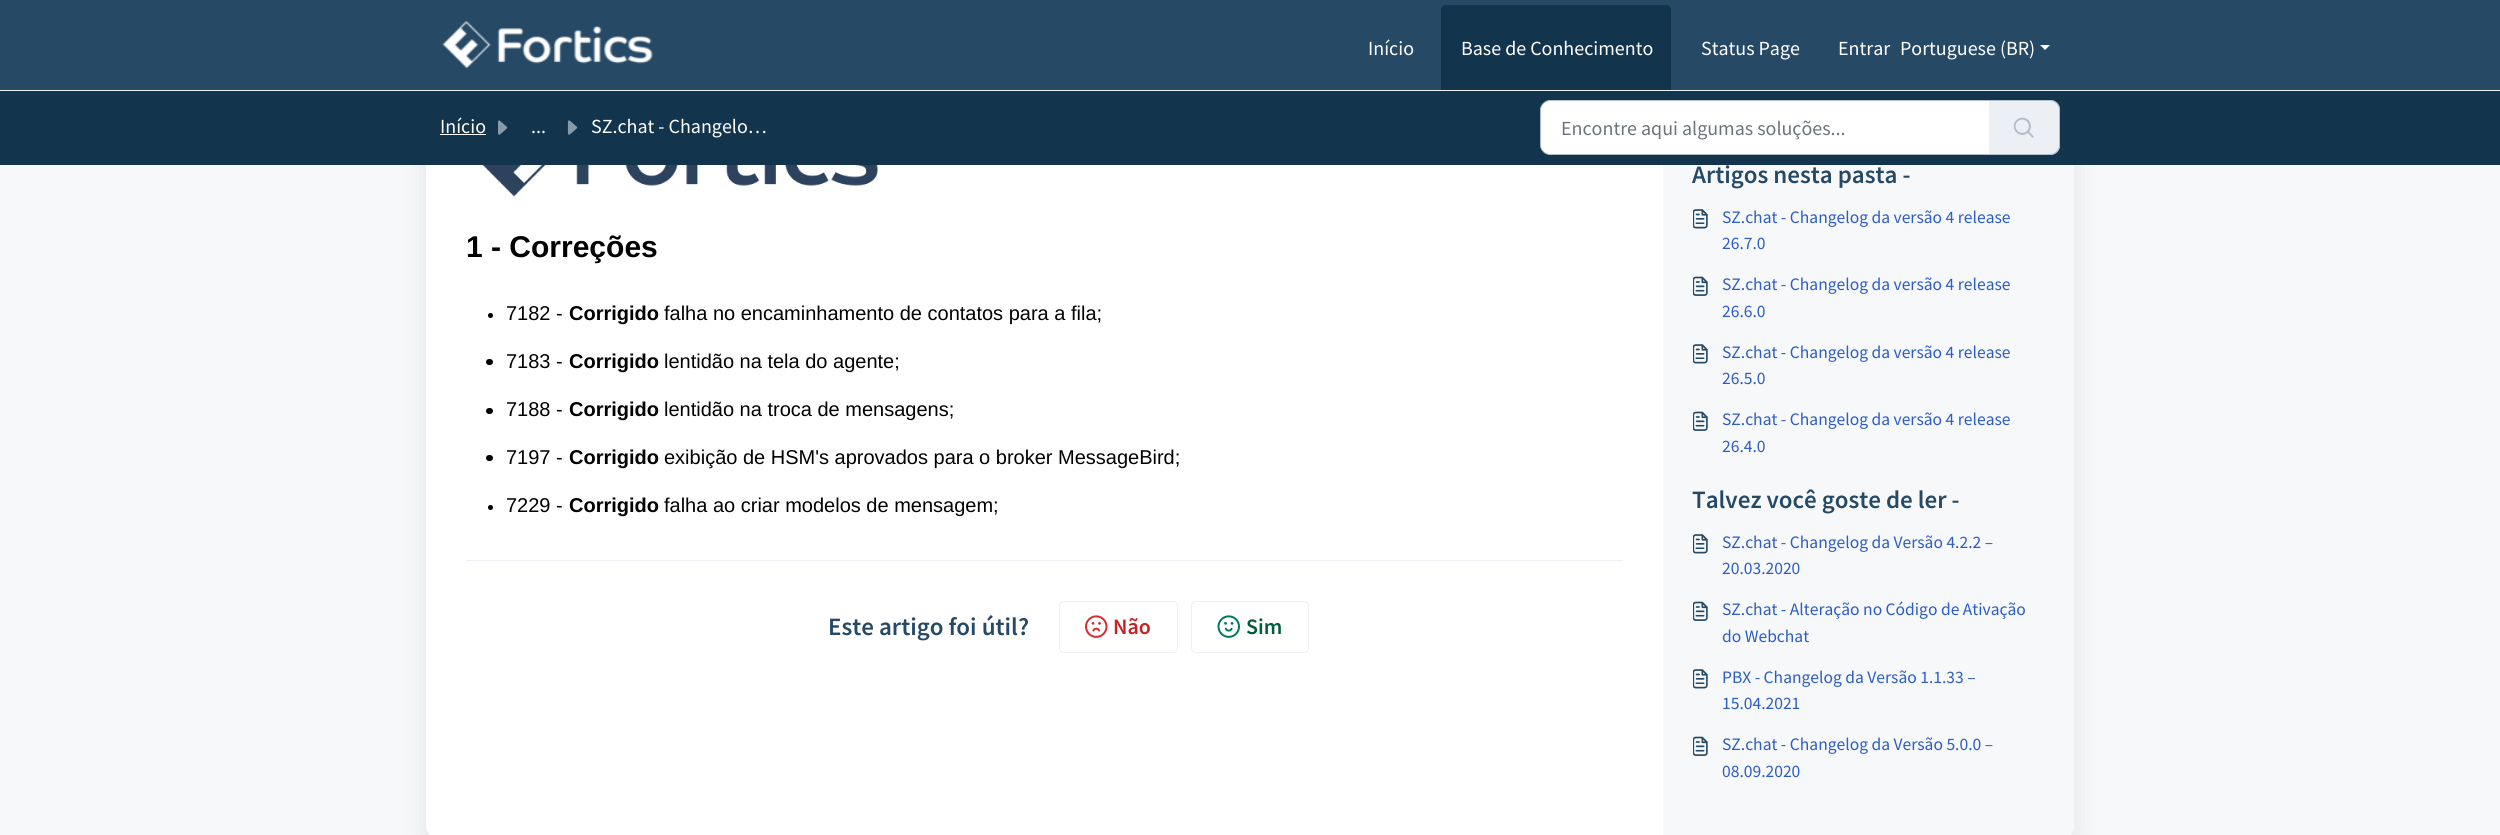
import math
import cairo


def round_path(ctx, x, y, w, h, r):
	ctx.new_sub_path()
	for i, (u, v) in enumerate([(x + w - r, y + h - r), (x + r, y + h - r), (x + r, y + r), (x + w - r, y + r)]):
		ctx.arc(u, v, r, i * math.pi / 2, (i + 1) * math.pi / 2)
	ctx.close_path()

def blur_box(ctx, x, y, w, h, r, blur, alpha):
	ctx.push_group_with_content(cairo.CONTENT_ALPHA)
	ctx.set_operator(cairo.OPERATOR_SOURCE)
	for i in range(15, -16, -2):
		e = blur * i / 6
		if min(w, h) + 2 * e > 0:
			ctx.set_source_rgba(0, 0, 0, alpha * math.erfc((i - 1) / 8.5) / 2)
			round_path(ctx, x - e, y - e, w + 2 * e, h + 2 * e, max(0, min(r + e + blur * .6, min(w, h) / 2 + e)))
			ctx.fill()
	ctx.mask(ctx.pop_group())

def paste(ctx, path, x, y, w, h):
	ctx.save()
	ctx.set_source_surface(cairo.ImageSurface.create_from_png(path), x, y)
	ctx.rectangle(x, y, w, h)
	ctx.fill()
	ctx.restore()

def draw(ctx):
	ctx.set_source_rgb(0.961, 0.969, 0.976)
	ctx.paint()
	ctx.set_source_rgb(0.153, 0.192, 0.227)
	blur_box(ctx, 425, 80, 1650, 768, 15, 12, 0.1)
	ctx.set_source_rgb(1, 1, 1)
	round_path(ctx, 425.5, 73.5, 1649, 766, 14.5)
	ctx.fill_preserve()
	ctx.set_source_rgb(0.922, 0.937, 0.953)
	ctx.set_line_width(1)
	ctx.stroke()
	ctx.set_source_rgb(0.961, 0.969, 0.976)
	ctx.new_path()
	ctx.move_to(1663, 74)
	ctx.line_to(2059, 74)
	ctx.curve_to(2067.5, 74, 2074, 80.5, 2074, 89)
	ctx.line_to(2074, 824)
	ctx.curve_to(2074, 832.5, 2067.5, 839, 2059, 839)
	ctx.line_to(1663, 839)
	ctx.close_path()
	ctx.fill()
	ctx.set_source_rgb(0.149, 0.286, 0.4)
	ctx.rectangle(0, 0, 2500, 90)
	ctx.fill()
	ctx.set_source_rgb(0.922, 0.937, 0.953)
	ctx.rectangle(0, 90, 2500, 1)
	ctx.fill()
	paste(ctx, 'media/1.png', 442, 21, 212, 47)
	ctx.select_font_face('Source Sans Pro')
	ctx.set_font_size(20)
	ctx.set_source_rgb(1, 1, 1)
	ctx.move_to(1368, 55)
	ctx.show_text('Início')
	ctx.set_source_rgb(0.071, 0.204, 0.302)
	ctx.new_path()
	ctx.move_to(1446, 5)
	ctx.line_to(1666, 5)
	ctx.curve_to(1669, 5, 1671, 7, 1671, 10)
	ctx.line_to(1671, 90)
	ctx.line_to(1441, 90)
	ctx.line_to(1441, 10)
	ctx.curve_to(1441, 7, 1443, 5, 1446, 5)
	ctx.close_path()
	ctx.fill()
	ctx.set_source_rgb(1, 1, 1)
	for x, y, s in [
		(1461, 55, 'Base de Conhecimento'),
		(1701, 55, 'Status Page'),
		(1838, 55, 'Entrar'),
		(1900, 55, 'Portuguese (BR)'),
	]:
		ctx.move_to(x, y)
		ctx.show_text(s)
	ctx.new_path()
	ctx.move_to(2040, 45)
	ctx.line_to(2050, 45)
	ctx.line_to(2045, 50)
	ctx.close_path()
	ctx.fill()
	ctx.set_source_rgb(0.071, 0.204, 0.302)
	ctx.rectangle(0, 91, 2500, 74)
	ctx.fill()
	ctx.set_source_rgb(1, 1, 1)
	ctx.move_to(440, 133)
	ctx.show_text('Início')
	ctx.rectangle(440, 134, 46, 1)
	ctx.fill()
	paste(ctx, 'media/2.png', 498, 120, 10, 15)
	ctx.move_to(531, 133)
	ctx.show_text('...')
	paste(ctx, 'media/3.png', 567, 120, 11, 15)
	ctx.move_to(591, 133)
	ctx.show_text('SZ.chat - Changelo…')
	ctx.new_path()
	ctx.move_to(1550, 100.5)
	ctx.line_to(1989.5, 100.5)
	ctx.line_to(1989.5, 154.5)
	ctx.line_to(1550, 154.5)
	ctx.curve_to(1545, 154.5, 1540.5, 150, 1540.5, 145)
	ctx.line_to(1540.5, 110)
	ctx.curve_to(1540.5, 105, 1545, 100.5, 1550, 100.5)
	ctx.close_path()
	ctx.fill_preserve()
	ctx.set_source_rgb(0.694, 0.741, 0.784)
	ctx.stroke()
	ctx.set_source_rgb(0.424, 0.459, 0.49)
	ctx.move_to(1561, 135)
	ctx.show_text('Encontre aqui algumas soluções...')
	ctx.set_source_rgb(0.922, 0.937, 0.953)
	ctx.new_path()
	ctx.move_to(1989, 100)
	ctx.line_to(2050, 100)
	ctx.curve_to(2055.5, 100, 2060, 104.5, 2060, 110)
	ctx.line_to(2060, 145)
	ctx.curve_to(2060, 150.5, 2055.5, 155, 2050, 155)
	ctx.line_to(1989, 155)
	ctx.close_path()
	ctx.fill()
	ctx.set_source_rgb(0.694, 0.741, 0.784)
	ctx.set_fill_rule(cairo.FILL_RULE_EVEN_ODD)
	ctx.new_path()
	ctx.move_to(1989, 100)
	ctx.line_to(2050, 100)
	ctx.curve_to(2056, 100, 2060, 104, 2060, 110)
	ctx.line_to(2060, 145)
	ctx.curve_to(2060, 151, 2056, 155, 2050, 155)
	ctx.line_to(1989, 155)
	ctx.close_path()
	ctx.move_to(1989, 101)
	ctx.line_to(2050, 101)
	ctx.curve_to(2055, 101, 2059, 105, 2059, 110)
	ctx.line_to(2059, 145)
	ctx.curve_to(2059, 150, 2055, 154, 2050, 154)
	ctx.line_to(1989, 154)
	ctx.close_path()
	ctx.fill()
	paste(ctx, 'media/4.png', 2013, 117, 21, 21)
	paste(ctx, 'media/5.png', 482, 165, 396, 32)
	ctx.select_font_face('Liberation Sans', cairo.FONT_SLANT_NORMAL, cairo.FONT_WEIGHT_BOLD)
	ctx.set_font_size(30)
	ctx.set_source_rgb(0, 0, 0)
	ctx.move_to(466, 257)
	ctx.show_text('1 - Correções')
	ctx.new_path()
	ctx.arc(490.5, 315.5, 2.5, 0, 2 * math.pi)
	ctx.fill()
	ctx.select_font_face('Liberation Sans')
	ctx.set_font_size(20)
	ctx.move_to(506, 320)
	ctx.show_text('7182 -')
	ctx.select_font_face('Liberation Sans', cairo.FONT_SLANT_NORMAL, cairo.FONT_WEIGHT_BOLD)
	ctx.move_to(569, 320)
	ctx.show_text('Corrigido')
	ctx.select_font_face('Liberation Sans')
	ctx.move_to(664, 320)
	ctx.show_text('falha no encaminhamento de contatos para a fila;')
	round_path(ctx, 486, 359, 7, 6, 3)
	ctx.fill()
	ctx.move_to(506, 368)
	ctx.show_text('7183 -')
	ctx.select_font_face('Liberation Sans', cairo.FONT_SLANT_NORMAL, cairo.FONT_WEIGHT_BOLD)
	ctx.move_to(569, 368)
	ctx.show_text('Corrigido')
	ctx.select_font_face('Liberation Sans')
	ctx.move_to(664, 368)
	ctx.show_text('lentidão na tela do agente;')
	round_path(ctx, 486, 408, 7, 6, 3)
	ctx.fill()
	ctx.move_to(506, 416)
	ctx.show_text('7188 -')
	ctx.select_font_face('Liberation Sans', cairo.FONT_SLANT_NORMAL, cairo.FONT_WEIGHT_BOLD)
	ctx.move_to(569, 416)
	ctx.show_text('Corrigido')
	ctx.select_font_face('Liberation Sans')
	ctx.move_to(664, 416)
	ctx.show_text('lentidão na troca de mensagens;')
	round_path(ctx, 486, 455, 7, 6, 3)
	ctx.fill()
	ctx.move_to(506, 464)
	ctx.show_text('7197 -')
	ctx.select_font_face('Liberation Sans', cairo.FONT_SLANT_NORMAL, cairo.FONT_WEIGHT_BOLD)
	ctx.move_to(569, 464)
	ctx.show_text('Corrigido')
	ctx.select_font_face('Liberation Sans')
	ctx.move_to(664, 464)
	ctx.show_text('exibição de HSM\'s aprovados para o broker MessageBird;')
	ctx.new_path()
	ctx.arc(490.5, 507.5, 2.5, 0, 2 * math.pi)
	ctx.fill()
	ctx.move_to(506, 512)
	ctx.show_text('7229 -')
	ctx.select_font_face('Liberation Sans', cairo.FONT_SLANT_NORMAL, cairo.FONT_WEIGHT_BOLD)
	ctx.move_to(569, 512)
	ctx.show_text('Corrigido')
	ctx.select_font_face('Liberation Sans')
	ctx.move_to(664, 512)
	ctx.show_text('falha ao criar modelos de mensagem;')
	ctx.set_source_rgb(0.922, 0.937, 0.953)
	ctx.rectangle(466, 560, 1157, 1)
	ctx.fill()
	ctx.select_font_face('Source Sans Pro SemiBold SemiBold')
	ctx.set_font_size(25)
	ctx.set_source_rgb(0.149, 0.286, 0.4)
	ctx.move_to(828, 635)
	ctx.show_text('Este artigo foi útil?')
	round_path(ctx, 1059.5, 601.5, 118, 51, 4.5)
	ctx.set_source_rgb(0.922, 0.937, 0.953)
	ctx.stroke()
	paste(ctx, 'media/6.png', 1085, 615, 23, 23)
	ctx.set_font_size(22)
	ctx.set_source_rgb(0.784, 0.129, 0.141)
	ctx.move_to(1113, 634)
	ctx.show_text('Não')
	round_path(ctx, 1191.5, 601.5, 117, 51, 4.5)
	ctx.set_source_rgb(0.922, 0.937, 0.953)
	ctx.stroke()
	paste(ctx, 'media/7.png', 1217, 615, 23, 23)
	ctx.set_source_rgb(0, 0.361, 0.247)
	ctx.move_to(1246, 634)
	ctx.show_text('Sim')
	ctx.set_font_size(25)
	ctx.set_source_rgb(0.149, 0.286, 0.4)
	ctx.move_to(1692, 183)
	ctx.show_text('Artigos nesta pasta -')
	paste(ctx, 'media/8.png', 1693, 209, 15, 20)
	ctx.select_font_face('Source Sans Pro')
	ctx.set_font_size(17.5)
	ctx.set_source_rgb(0.173, 0.361, 0.773)
	ctx.move_to(1722, 223)
	ctx.show_text('SZ.chat - Changelog da versão 4 release')
	ctx.move_to(1722, 249)
	ctx.show_text('26.7.0')
	paste(ctx, 'media/9.png', 1693, 276, 15, 20)
	ctx.move_to(1722, 290)
	ctx.show_text('SZ.chat - Changelog da versão 4 release')
	ctx.move_to(1722, 317)
	ctx.show_text('26.6.0')
	paste(ctx, 'media/8.png', 1693, 344, 15, 20)
	ctx.move_to(1722, 358)
	ctx.show_text('SZ.chat - Changelog da versão 4 release')
	ctx.move_to(1722, 384)
	ctx.show_text('26.5.0')
	paste(ctx, 'media/9.png', 1693, 411, 15, 20)
	ctx.move_to(1722, 425)
	ctx.show_text('SZ.chat - Changelog da versão 4 release')
	ctx.move_to(1722, 452)
	ctx.show_text('26.4.0')
	ctx.select_font_face('Source Sans Pro SemiBold SemiBold')
	ctx.set_font_size(25)
	ctx.set_source_rgb(0.149, 0.286, 0.4)
	ctx.move_to(1692, 508)
	ctx.show_text('Talvez você goste de ler -')
	paste(ctx, 'media/8.png', 1693, 534, 15, 20)
	ctx.select_font_face('Source Sans Pro')
	ctx.set_font_size(17.5)
	ctx.set_source_rgb(0.173, 0.361, 0.773)
	ctx.move_to(1722, 548)
	ctx.show_text('SZ.chat - Changelog da Versão 4.2.2 –')
	ctx.move_to(1722, 574)
	ctx.show_text('20.03.2020')
	paste(ctx, 'media/9.png', 1693, 601, 15, 20)
	ctx.move_to(1722, 615)
	ctx.show_text('SZ.chat - Alteração no Código de Ativação')
	ctx.move_to(1722, 642)
	ctx.show_text('do Webchat')
	paste(ctx, 'media/8.png', 1693, 669, 15, 20)
	ctx.move_to(1722, 683)
	ctx.show_text('PBX - Changelog da Versão 1.1.33 –')
	ctx.move_to(1722, 709)
	ctx.show_text('15.04.2021')
	paste(ctx, 'media/9.png', 1693, 736, 15, 20)
	ctx.move_to(1722, 750)
	ctx.show_text('SZ.chat - Changelog da Versão 5.0.0 –')
	ctx.move_to(1722, 777)
	ctx.show_text('08.09.2020')


surface = cairo.ImageSurface(cairo.FORMAT_RGB24, 2500, 835)
ctx = cairo.Context(surface)
options = cairo.FontOptions()
options.set_hint_metrics(cairo.HINT_METRICS_OFF)
options.set_hint_style(cairo.HINT_STYLE_NONE)
ctx.set_font_options(options)
ctx.set_miter_limit(4)
draw(ctx)
surface.write_to_png('image.png')
